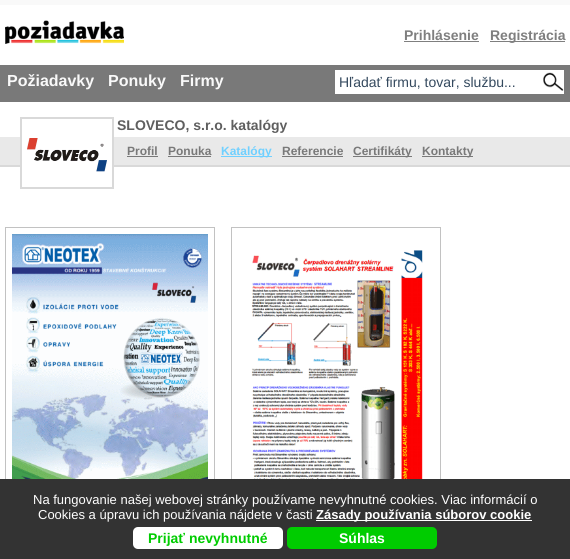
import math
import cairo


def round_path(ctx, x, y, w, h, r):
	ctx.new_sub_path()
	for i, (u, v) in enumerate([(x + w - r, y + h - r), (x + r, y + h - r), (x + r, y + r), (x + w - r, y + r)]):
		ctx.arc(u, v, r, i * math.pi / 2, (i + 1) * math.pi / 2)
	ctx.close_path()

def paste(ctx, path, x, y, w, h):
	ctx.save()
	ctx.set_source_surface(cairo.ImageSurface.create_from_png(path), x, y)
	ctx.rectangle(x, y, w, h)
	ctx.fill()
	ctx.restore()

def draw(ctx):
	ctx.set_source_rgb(0.976, 0.976, 0.976)
	ctx.paint()
	ctx.set_source_rgb(1, 1, 1)
	ctx.rectangle(0, 5, 570, 474)
	ctx.fill()
	paste(ctx, 'media/1.png', 5, 20, 119, 24)
	ctx.select_font_face('Liberation Sans', cairo.FONT_SLANT_NORMAL, cairo.FONT_WEIGHT_BOLD)
	ctx.set_font_size(14)
	ctx.set_source_rgb(0.498, 0.498, 0.498)
	ctx.move_to(404, 40)
	ctx.show_text('Prihlásenie')
	ctx.rectangle(404, 41, 75, 1)
	ctx.fill()
	ctx.rectangle(490, 41, 75, 1)
	ctx.fill()
	ctx.move_to(490, 40)
	ctx.show_text('Registrácia')
	ctx.set_source_rgb(0.475, 0.475, 0.475)
	ctx.rectangle(0, 65, 570, 37)
	ctx.fill()
	ctx.set_font_size(16)
	ctx.set_source_rgb(0.976, 0.976, 0.976)
	for x, y, s in [
		(7, 86, 'Požiadavky'),
		(108, 86, 'Ponuky'),
		(180, 86, 'Firmy'),
	]:
		ctx.move_to(x, y)
		ctx.show_text(s)
	ctx.set_source_rgb(1, 1, 1)
	ctx.rectangle(335, 70, 229, 24)
	ctx.fill()
	paste(ctx, 'media/2.png', 543, 72, 21, 19)
	ctx.select_font_face('Liberation Sans')
	ctx.set_font_size(14)
	ctx.set_source_rgb(0.204, 0.286, 0.369)
	ctx.move_to(339, 87)
	ctx.show_text('Hľadať firmu, tovar, službu...')
	ctx.set_source_rgb(0.914, 0.914, 0.914)
	ctx.rectangle(0, 137, 570, 28)
	ctx.fill()
	ctx.set_source_rgb(0.851, 0.851, 0.851)
	ctx.rectangle(0, 165, 570, 2)
	ctx.fill()
	ctx.set_source_rgb(1, 1, 1)
	ctx.rectangle(22, 137, 90, 30)
	ctx.fill()
	ctx.rectangle(21, 118, 92, 70)
	ctx.set_source_rgb(0.851, 0.851, 0.851)
	ctx.stroke()
	paste(ctx, 'media/3.png', 27, 138, 80, 34)
	ctx.select_font_face('Liberation Sans', cairo.FONT_SLANT_NORMAL, cairo.FONT_WEIGHT_BOLD)
	ctx.set_source_rgb(0.373, 0.373, 0.373)
	ctx.move_to(117, 130)
	ctx.show_text('SLOVECO, s.r.o. katalógy')
	ctx.set_font_size(12)
	ctx.set_source_rgb(0.475, 0.475, 0.475)
	ctx.move_to(127, 155)
	ctx.show_text('Profil')
	ctx.rectangle(127, 156, 31, 1)
	ctx.fill()
	ctx.move_to(168, 155)
	ctx.show_text('Ponuka')
	ctx.rectangle(168, 156, 43, 1)
	ctx.fill()
	ctx.set_source_rgb(0.439, 0.816, 1)
	ctx.rectangle(221, 156, 51, 1)
	ctx.fill()
	ctx.move_to(221, 155)
	ctx.show_text('Katalógy')
	ctx.set_source_rgb(0.475, 0.475, 0.475)
	ctx.move_to(282, 155)
	ctx.show_text('Referencie')
	ctx.rectangle(282, 156, 61, 1)
	ctx.fill()
	ctx.rectangle(353, 156, 59, 1)
	ctx.fill()
	ctx.move_to(353, 155)
	ctx.show_text('Certifikáty')
	ctx.rectangle(422, 156, 51, 1)
	ctx.fill()
	ctx.move_to(422, 155)
	ctx.show_text('Kontakty')
	ctx.rectangle(5.5, 227.5, 209, 321)
	ctx.set_source_rgb(0.761, 0.761, 0.761)
	ctx.set_line_width(1)
	ctx.stroke()
	paste(ctx, 'media/4.png', 12, 234, 196, 245)
	ctx.rectangle(231.5, 227.5, 209, 321)
	ctx.stroke()
	paste(ctx, 'media/5.png', 249, 250, 174, 229)
	ctx.set_source_rgb(0.2, 0.2, 0.2)
	ctx.rectangle(0, 479, 570, 80)
	ctx.fill()
	ctx.select_font_face('Liberation Sans')
	ctx.set_font_size(13)
	ctx.set_source_rgb(1, 1, 1)
	ctx.move_to(33, 504)
	ctx.show_text('Na fungovanie našej webovej stránky používame nevyhnutné cookies. Viac informácií o')
	ctx.move_to(38, 519)
	ctx.show_text('Cookies a úpravu ich používania nájdete v časti')
	ctx.rectangle(316, 520, 216, 1)
	ctx.fill()
	ctx.select_font_face('Liberation Sans', cairo.FONT_SLANT_NORMAL, cairo.FONT_WEIGHT_BOLD)
	ctx.move_to(316, 519)
	ctx.show_text('Zásady používania súborov cookie')
	round_path(ctx, 133, 527, 150, 22, 5)
	ctx.fill()
	ctx.set_font_size(14)
	ctx.set_source_rgb(0, 0.8, 0)
	ctx.move_to(148, 543)
	ctx.show_text('Prijať nevyhnutné')
	round_path(ctx, 287, 527, 150, 22, 5)
	ctx.fill()
	ctx.set_source_rgb(1, 1, 1)
	ctx.move_to(339, 543)
	ctx.show_text('Súhlas')


surface = cairo.ImageSurface(cairo.FORMAT_RGB24, 570, 559)
ctx = cairo.Context(surface)
options = cairo.FontOptions()
options.set_hint_metrics(cairo.HINT_METRICS_OFF)
options.set_hint_style(cairo.HINT_STYLE_NONE)
ctx.set_font_options(options)
ctx.set_miter_limit(4)
draw(ctx)
surface.write_to_png('image.png')
